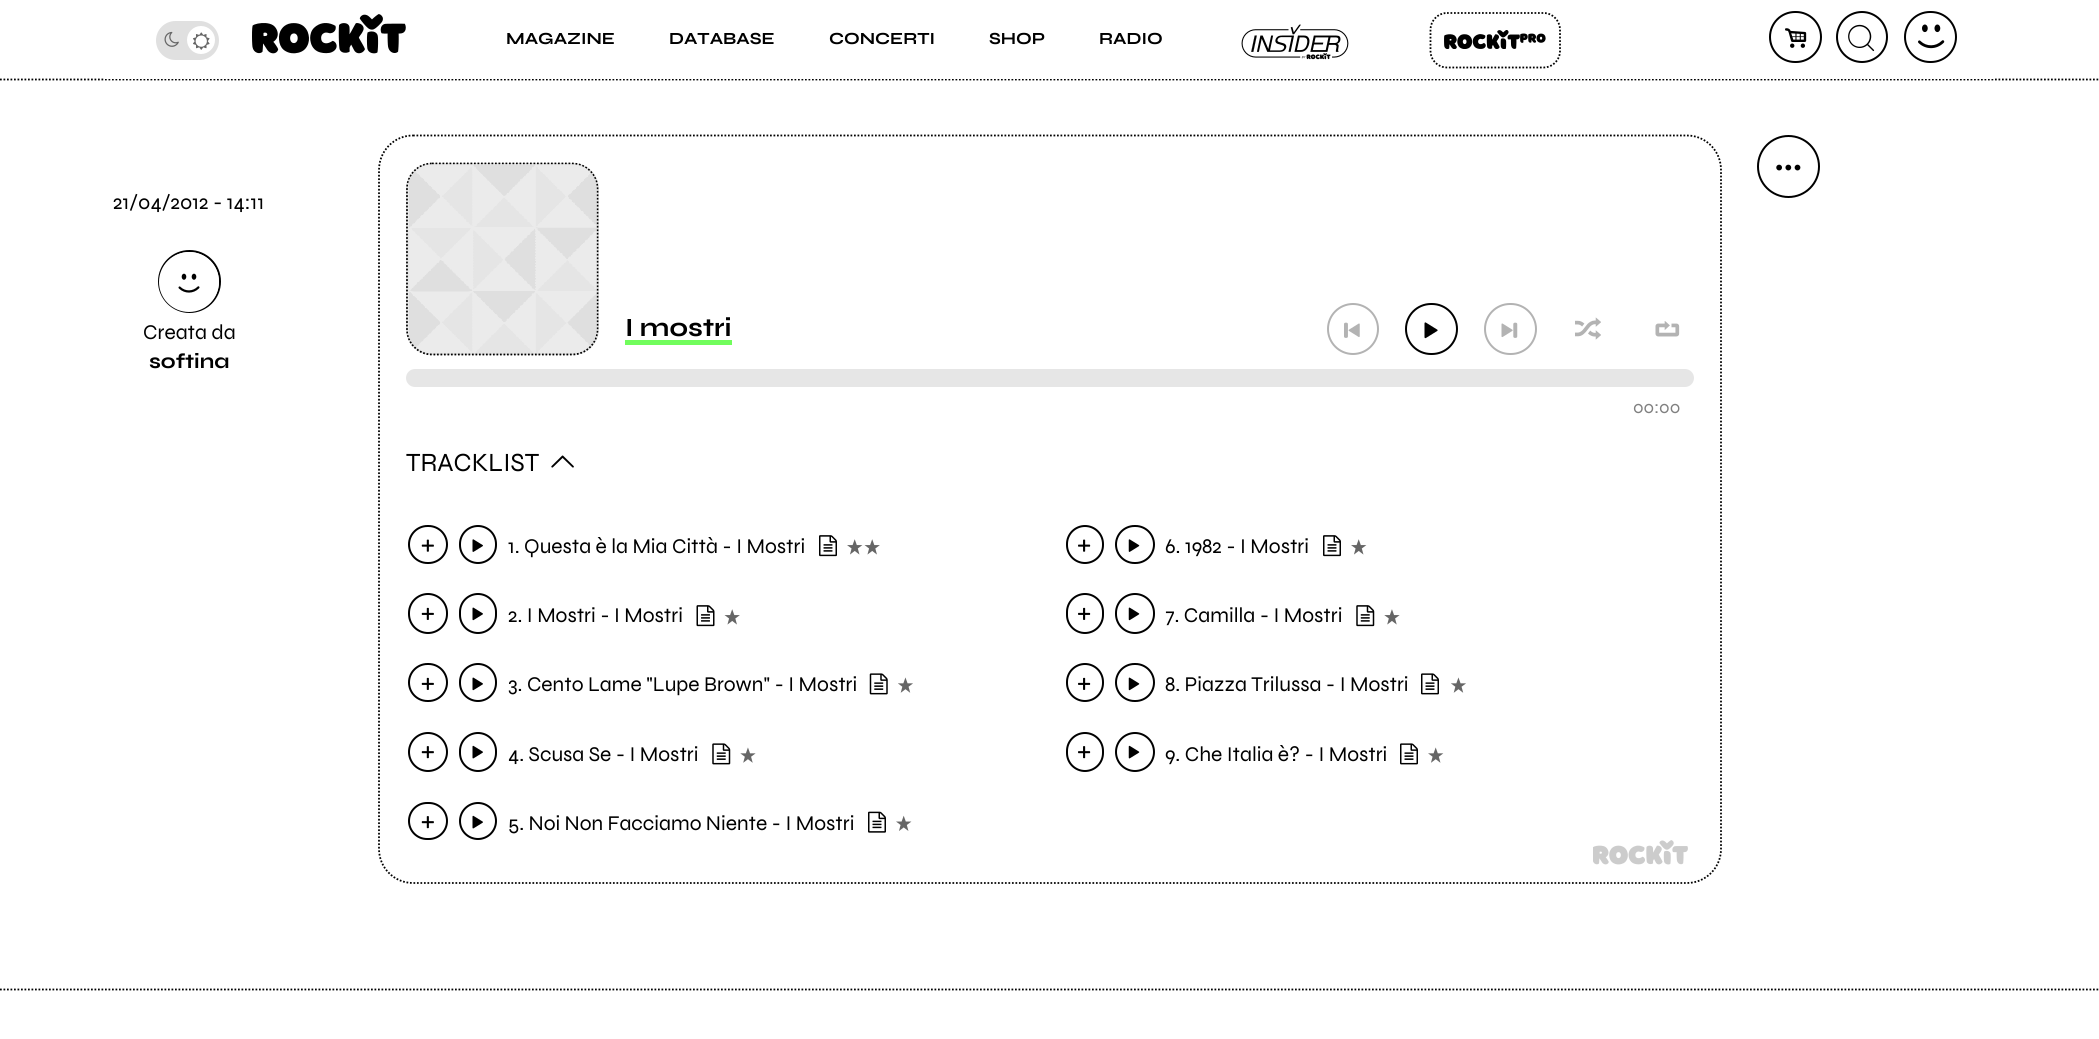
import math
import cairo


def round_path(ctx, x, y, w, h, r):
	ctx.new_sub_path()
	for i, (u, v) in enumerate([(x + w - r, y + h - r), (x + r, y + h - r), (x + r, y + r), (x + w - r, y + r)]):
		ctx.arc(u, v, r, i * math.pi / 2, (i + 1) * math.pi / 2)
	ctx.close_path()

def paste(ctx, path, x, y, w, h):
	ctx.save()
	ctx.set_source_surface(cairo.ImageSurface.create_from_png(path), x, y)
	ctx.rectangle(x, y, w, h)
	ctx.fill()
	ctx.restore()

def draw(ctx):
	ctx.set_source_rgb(1, 1, 1)
	ctx.paint()
	ctx.new_path()
	ctx.move_to(0, 79.5)
	ctx.line_to(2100, 79.5)
	ctx.set_source_rgb(0, 0, 0)
	ctx.set_line_width(1.8)
	ctx.set_dash([1.75, 1.75])
	ctx.stroke()
	ctx.set_source_rgb(1, 1, 1)
	ctx.rectangle(105, 78, 1889, 1)
	ctx.fill()
	paste(ctx, 'media/1.png', 252, 14, 154, 40)
	round_path(ctx, 1770, 12, 51, 50, 25)
	ctx.set_source_rgb(0, 0, 0)
	ctx.set_line_width(2)
	ctx.set_dash([])
	ctx.stroke()
	paste(ctx, 'media/2.png', 1785, 28, 22, 20)
	ctx.arc(1862, 37, 25, 0, 2 * math.pi)
	ctx.stroke()
	paste(ctx, 'media/3.png', 1848, 24, 27, 28)
	paste(ctx, 'media/4.png', 1918, 24, 27, 25)
	round_path(ctx, 1905, 12, 51, 50, 25)
	ctx.stroke()
	ctx.set_source_rgb(0.878, 0.878, 0.878)
	round_path(ctx, 156, 21, 63, 39, 19.5)
	ctx.fill()
	ctx.set_source_rgb(1, 1, 1)
	ctx.arc(201, 40, 14, 0, 2 * math.pi)
	ctx.fill()
	paste(ctx, 'media/5.png', 164, 31, 15, 16)
	paste(ctx, 'media/6.png', 193, 32, 17, 18)
	ctx.select_font_face('Syne', cairo.FONT_SLANT_NORMAL, cairo.FONT_WEIGHT_BOLD)
	ctx.set_font_size(17)
	ctx.set_source_rgb(0, 0, 0)
	for x, y, s in [
		(506, 44, 'MAGAZINE'),
		(669, 44, 'DATABASE'),
		(829, 44, 'CONCERTI'),
		(989, 44, 'SHOP'),
		(1099, 44, 'RADIO'),
	]:
		ctx.move_to(x, y)
		ctx.show_text(s)
	paste(ctx, 'media/7.png', 1241, 24, 108, 36)
	paste(ctx, 'media/8.png', 1444, 30, 102, 19)
	ctx.new_path()
	ctx.move_to(1447, 13)
	ctx.line_to(1543.5, 13)
	ctx.curve_to(1552.5, 13, 1560, 20.5, 1560, 30)
	ctx.line_to(1560, 51)
	ctx.curve_to(1560, 60, 1552.5, 67.5, 1543.5, 67.5)
	ctx.line_to(1447, 67.5)
	ctx.curve_to(1438, 67.5, 1430.5, 60, 1430.5, 51)
	ctx.line_to(1430.5, 30)
	ctx.curve_to(1430.5, 20.5, 1438, 13, 1447, 13)
	ctx.close_path()
	ctx.set_line_width(1.8)
	ctx.set_dash([1.75, 1.75])
	ctx.stroke()
	ctx.arc(1788.5, 166.5, 30.5, 0, 2 * math.pi)
	ctx.set_line_width(2)
	ctx.set_dash([])
	ctx.stroke()
	paste(ctx, 'media/9.png', 1776, 164, 25, 7)
	ctx.select_font_face('Syne')
	ctx.set_font_size(21)
	ctx.move_to(113, 209)
	ctx.show_text('21/04/2012 - 14:11')
	ctx.new_path()
	ctx.arc(189.5, 281.5, 30.5, 0, 2 * math.pi)
	ctx.stroke()
	ctx.set_source_rgb(1, 1, 1)
	ctx.arc(189, 282, 30, 0, 2 * math.pi)
	ctx.fill()
	paste(ctx, 'media/10.png', 178, 273, 22, 20)
	ctx.set_source_rgb(0, 0, 0)
	ctx.move_to(143, 339)
	ctx.show_text('Creata da')
	ctx.select_font_face('Syne', cairo.FONT_SLANT_NORMAL, cairo.FONT_WEIGHT_BOLD)
	ctx.move_to(149, 368)
	ctx.show_text('softina')
	ctx.new_path()
	ctx.move_to(413, 135.5)
	ctx.line_to(1687, 135.5)
	ctx.curve_to(1706, 135.5, 1721, 151, 1721, 170)
	ctx.line_to(1721, 849)
	ctx.curve_to(1721, 867.5, 1706, 883, 1687, 883)
	ctx.line_to(413, 883)
	ctx.curve_to(394, 883, 379, 867.5, 379, 849)
	ctx.line_to(379, 170)
	ctx.curve_to(379, 151, 394, 135.5, 413, 135.5)
	ctx.close_path()
	ctx.set_line_width(1.8)
	ctx.set_dash([1.75, 1.75])
	ctx.stroke()
	ctx.set_source_rgb(0.878, 0.878, 0.878)
	round_path(ctx, 406, 163, 193, 192, 26)
	ctx.fill()
	ctx.new_path()
	ctx.move_to(432, 163.5)
	ctx.line_to(572, 163.5)
	ctx.curve_to(586.5, 163.5, 597.5, 175, 597.5, 189)
	ctx.line_to(597.5, 329)
	ctx.curve_to(597.5, 343, 586.5, 354.5, 572, 354.5)
	ctx.line_to(432, 354.5)
	ctx.curve_to(418, 354.5, 407, 343, 407, 329)
	ctx.line_to(407, 189)
	ctx.curve_to(407, 175, 418, 163.5, 432, 163.5)
	ctx.close_path()
	ctx.set_source_rgb(0, 0, 0)
	ctx.stroke()
	paste(ctx, 'media/11.png', 407, 164, 190, 190)
	ctx.set_font_size(26.25)
	ctx.move_to(625, 336)
	ctx.show_text('I mostri')
	ctx.set_source_rgb(0.443, 0.992, 0.361)
	ctx.rectangle(625, 340, 107, 5)
	ctx.fill()
	ctx.arc(1353, 329, 25, 0, 2 * math.pi)
	ctx.set_source_rgb(0.702, 0.702, 0.702)
	ctx.set_line_width(2)
	ctx.set_dash([])
	ctx.stroke()
	paste(ctx, 'media/12.png', 1344, 322, 16, 16)
	round_path(ctx, 1406, 304, 51, 50, 25)
	ctx.set_source_rgb(0, 0, 0)
	ctx.stroke()
	paste(ctx, 'media/13.png', 1424, 322, 14, 17)
	round_path(ctx, 1485, 304, 51, 50, 25)
	ctx.set_source_rgb(0.702, 0.702, 0.702)
	ctx.stroke()
	paste(ctx, 'media/14.png', 1501, 322, 17, 16)
	paste(ctx, 'media/15.png', 1575, 317, 26, 23)
	paste(ctx, 'media/16.png', 1655, 321, 25, 16)
	ctx.set_source_rgb(0.902, 0.902, 0.902)
	round_path(ctx, 406, 369, 1288, 18, 9)
	ctx.fill()
	ctx.select_font_face('Syne')
	ctx.set_font_size(18)
	ctx.set_source_rgb(0.502, 0.502, 0.502)
	ctx.move_to(1633, 413)
	ctx.show_text('00:00')
	ctx.set_font_size(26.25)
	ctx.set_source_rgb(0, 0, 0)
	ctx.move_to(406, 471)
	ctx.show_text('TRACKLIST')
	paste(ctx, 'media/17.png', 551, 455, 23, 13)
	round_path(ctx, 409, 526, 38, 37, 18.5)
	ctx.stroke()
	paste(ctx, 'media/18.png', 421, 539, 13, 13)
	round_path(ctx, 460, 526, 36, 37, 18)
	ctx.stroke()
	paste(ctx, 'media/19.png', 472, 539, 11, 13)
	ctx.set_font_size(21)
	ctx.move_to(508, 553)
	ctx.show_text('1. Questa è la Mia Città - I Mostri')
	paste(ctx, 'media/20.png', 819, 535, 18, 22)
	paste(ctx, 'media/21.png', 847, 539, 16, 16)
	paste(ctx, 'media/22.png', 864, 539, 16, 16)
	round_path(ctx, 1067, 526, 36, 37, 18)
	ctx.stroke()
	paste(ctx, 'media/23.png', 1078, 539, 13, 13)
	round_path(ctx, 1116, 526, 38, 37, 18.5)
	ctx.stroke()
	paste(ctx, 'media/24.png', 1128, 539, 12, 13)
	ctx.move_to(1165, 553)
	ctx.show_text('6. 1982 - I Mostri')
	paste(ctx, 'media/20.png', 1323, 535, 18, 22)
	paste(ctx, 'media/21.png', 1351, 539, 16, 16)
	round_path(ctx, 409, 594, 38, 39, 19)
	ctx.stroke()
	paste(ctx, 'media/25.png', 421, 607, 13, 13)
	round_path(ctx, 460, 594, 36, 39, 18)
	ctx.stroke()
	paste(ctx, 'media/26.png', 472, 607, 11, 14)
	ctx.move_to(508, 622)
	ctx.show_text('2. I Mostri - I Mostri')
	paste(ctx, 'media/27.png', 696, 605, 19, 22)
	paste(ctx, 'media/22.png', 724, 609, 16, 16)
	round_path(ctx, 1067, 594, 36, 39, 18)
	ctx.stroke()
	paste(ctx, 'media/28.png', 1078, 607, 13, 13)
	round_path(ctx, 1116, 594, 38, 39, 19)
	ctx.stroke()
	paste(ctx, 'media/29.png', 1128, 607, 12, 14)
	ctx.move_to(1165, 622)
	ctx.show_text('7. Camilla - I Mostri')
	paste(ctx, 'media/30.png', 1356, 605, 19, 22)
	paste(ctx, 'media/31.png', 1384, 609, 16, 16)
	round_path(ctx, 409, 664, 38, 37, 18.5)
	ctx.stroke()
	paste(ctx, 'media/25.png', 421, 677, 13, 13)
	round_path(ctx, 460, 664, 36, 37, 18)
	ctx.stroke()
	paste(ctx, 'media/26.png', 472, 677, 11, 14)
	ctx.move_to(508, 691)
	ctx.show_text('3. Cento Lame "Lupe Brown" - I Mostri')
	paste(ctx, 'media/32.png', 869, 673, 19, 22)
	paste(ctx, 'media/33.png', 898, 677, 15, 16)
	round_path(ctx, 1067, 664, 36, 37, 18)
	ctx.stroke()
	paste(ctx, 'media/28.png', 1078, 677, 13, 13)
	round_path(ctx, 1116, 664, 38, 37, 18.5)
	ctx.stroke()
	paste(ctx, 'media/29.png', 1128, 677, 12, 14)
	ctx.move_to(1165, 691)
	ctx.show_text('8. Piazza Trilussa - I Mostri')
	paste(ctx, 'media/34.png', 1421, 673, 18, 22)
	paste(ctx, 'media/33.png', 1451, 677, 15, 16)
	ctx.arc(428, 752, 19, 0, 2 * math.pi)
	ctx.stroke()
	paste(ctx, 'media/35.png', 421, 746, 13, 13)
	round_path(ctx, 460, 733, 36, 38, 18)
	ctx.stroke()
	paste(ctx, 'media/36.png', 472, 745, 11, 14)
	ctx.move_to(508, 761)
	ctx.show_text('4. Scusa Se - I Mostri')
	paste(ctx, 'media/37.png', 712, 743, 19, 22)
	paste(ctx, 'media/38.png', 740, 747, 16, 16)
	round_path(ctx, 1067, 733, 36, 38, 18)
	ctx.stroke()
	paste(ctx, 'media/39.png', 1078, 746, 13, 13)
	ctx.arc(1135, 752, 19, 0, 2 * math.pi)
	ctx.stroke()
	paste(ctx, 'media/40.png', 1128, 745, 12, 14)
	ctx.move_to(1165, 761)
	ctx.show_text('9. Che Italia è? - I Mostri')
	paste(ctx, 'media/34.png', 1400, 743, 18, 22)
	paste(ctx, 'media/41.png', 1428, 747, 16, 16)
	round_path(ctx, 409, 803, 38, 36, 18)
	ctx.stroke()
	paste(ctx, 'media/35.png', 421, 816, 13, 13)
	ctx.arc(478, 821, 18, 0, 2 * math.pi)
	ctx.stroke()
	paste(ctx, 'media/36.png', 472, 815, 11, 14)
	ctx.move_to(508, 830)
	ctx.show_text('5. Noi Non Facciamo Niente - I Mostri')
	paste(ctx, 'media/42.png', 868, 811, 18, 22)
	paste(ctx, 'media/43.png', 896, 815, 16, 16)
	paste(ctx, 'media/44.png', 1593, 840, 95, 25)
	ctx.new_path()
	ctx.move_to(0, 989.5)
	ctx.line_to(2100, 989.5)
	ctx.set_line_width(1.8)
	ctx.set_dash([1.75, 1.75])
	ctx.stroke()


surface = cairo.ImageSurface(cairo.FORMAT_RGB24, 2099, 1039)
ctx = cairo.Context(surface)
options = cairo.FontOptions()
options.set_hint_metrics(cairo.HINT_METRICS_OFF)
options.set_hint_style(cairo.HINT_STYLE_NONE)
ctx.set_font_options(options)
ctx.set_miter_limit(4)
draw(ctx)
surface.write_to_png('image.png')
